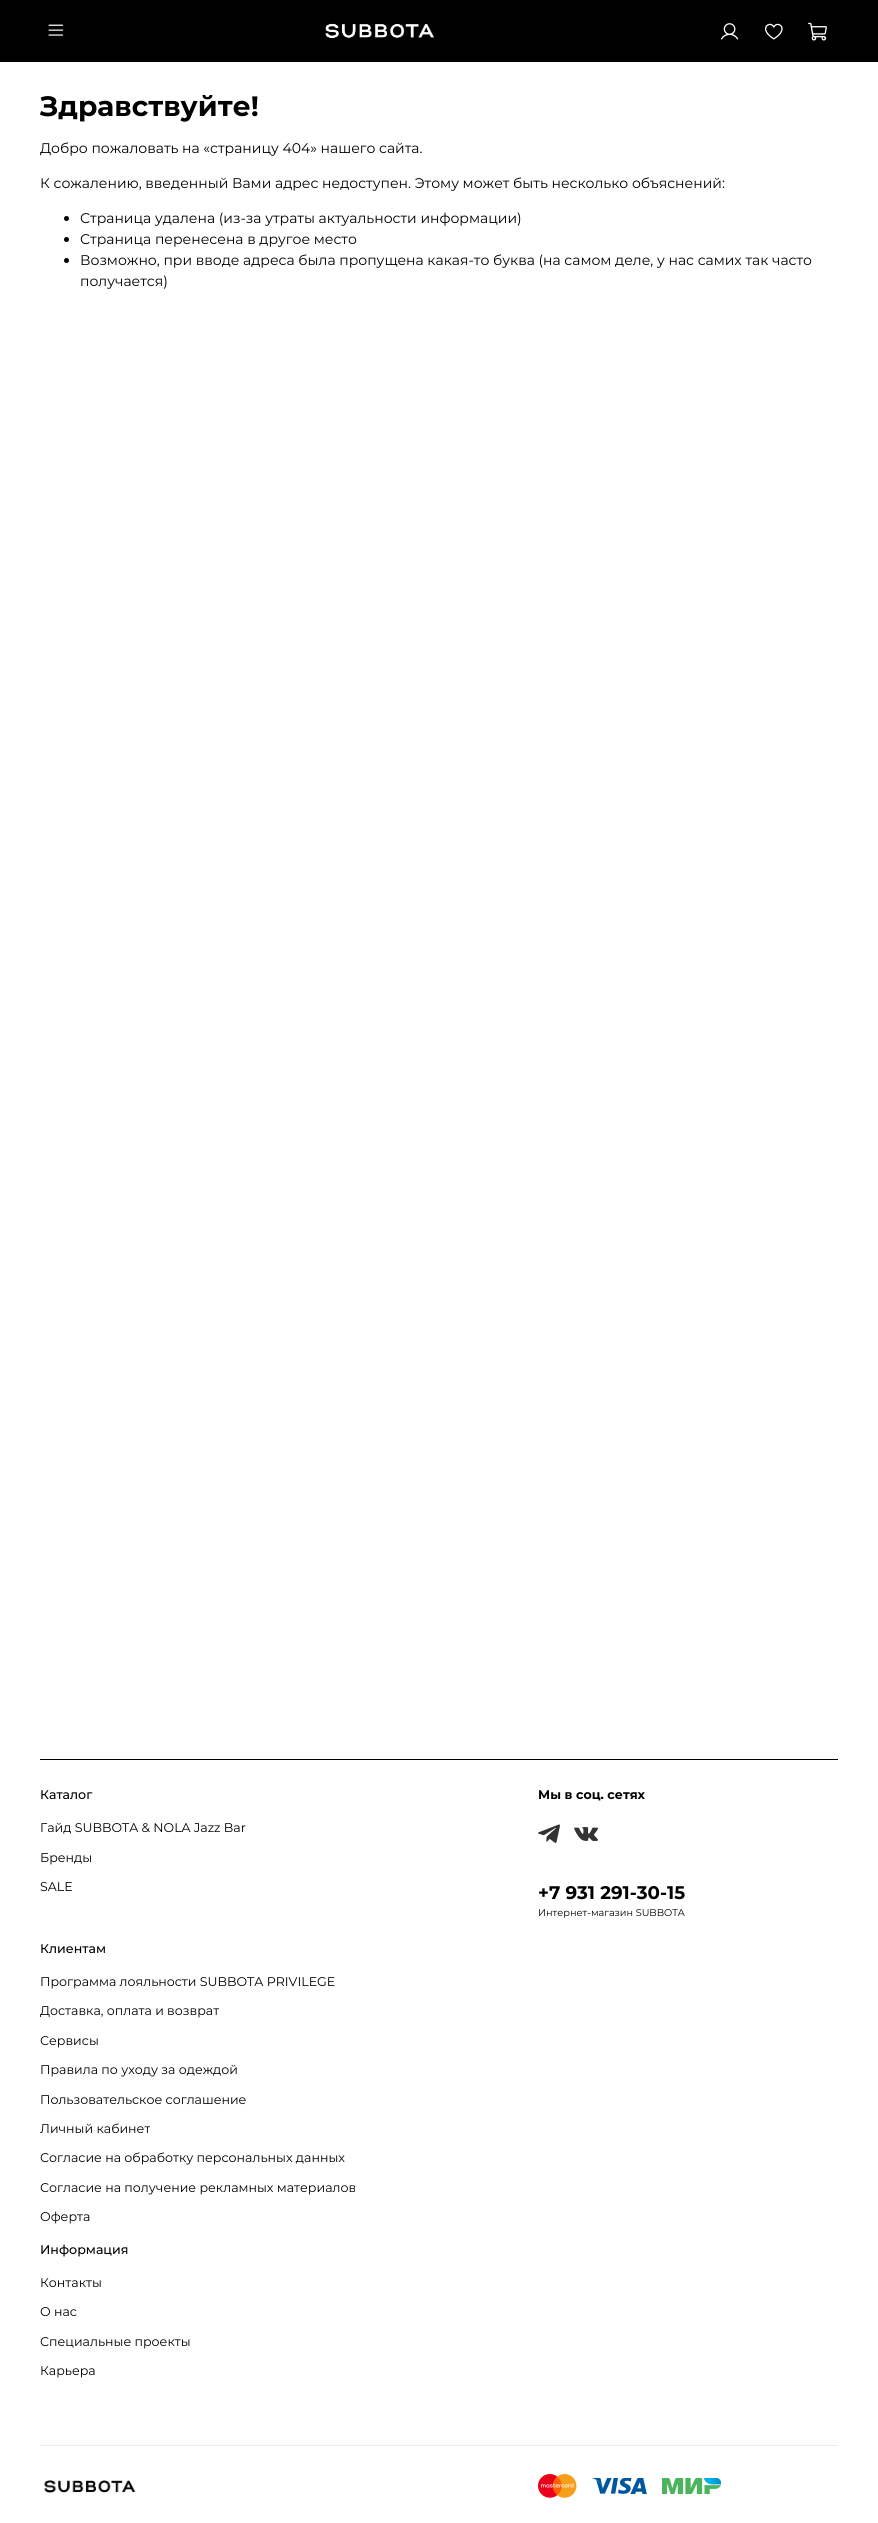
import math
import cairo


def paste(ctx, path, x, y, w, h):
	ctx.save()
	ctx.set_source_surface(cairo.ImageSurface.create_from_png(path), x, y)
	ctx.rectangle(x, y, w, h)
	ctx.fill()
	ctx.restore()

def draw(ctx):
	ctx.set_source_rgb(1, 1, 1)
	ctx.paint()
	ctx.set_source_rgb(0, 0, 0)
	ctx.rectangle(0, 0, 878, 62)
	ctx.fill()
	paste(ctx, 'media/1.png', 48, 24, 16, 12)
	paste(ctx, 'media/2.png', 325, 23, 110, 16)
	paste(ctx, 'media/3.png', 721, 23, 18, 17)
	paste(ctx, 'media/4.png', 765, 23, 18, 17)
	paste(ctx, 'media/5.png', 808, 22, 19, 19)
	ctx.select_font_face('Montserrat', cairo.FONT_SLANT_NORMAL, cairo.FONT_WEIGHT_BOLD)
	ctx.set_font_size(28)
	ctx.move_to(40, 116)
	ctx.show_text('Здравствуйте!')
	ctx.select_font_face('Montserrat')
	ctx.set_font_size(14)
	ctx.move_to(40, 153)
	ctx.show_text('Добро пожаловать на «страницу 404» нашего сайта.')
	ctx.move_to(40, 188)
	ctx.show_text('К сожалению, введенный Вами адрес недоступен. Этому может быть несколько объяснений:')
	ctx.new_path()
	ctx.arc(66.5, 218.5, 2.5, 0, 2 * math.pi)
	ctx.fill()
	ctx.move_to(80, 223)
	ctx.show_text('Страница удалена (из-за утраты актуальности информации)')
	ctx.new_path()
	ctx.arc(66.5, 239.5, 2.5, 0, 2 * math.pi)
	ctx.fill()
	ctx.move_to(80, 244)
	ctx.show_text('Страница перенесена в другое место')
	ctx.new_path()
	ctx.arc(66.5, 260.5, 2.5, 0, 2 * math.pi)
	ctx.fill()
	ctx.move_to(80, 265)
	ctx.show_text('Возможно, при вводе адреса была пропущена какая-то буква (на самом деле, у нас самих так часто')
	ctx.move_to(80, 286)
	ctx.show_text('получается)')
	ctx.rectangle(40, 1759, 798, 1)
	ctx.fill()
	ctx.select_font_face('Montserrat Medium')
	ctx.set_font_size(12.6)
	ctx.move_to(40, 1799)
	ctx.show_text('Каталог')
	ctx.select_font_face('Montserrat')
	for x, y, s in [
		(40, 1832, 'Гайд SUBBOTA & NOLA Jazz Bar'),
		(40, 1862, 'Бренды'),
		(40, 1891, 'SALE'),
	]:
		ctx.move_to(x, y)
		ctx.show_text(s)
	ctx.select_font_face('Montserrat Medium')
	ctx.move_to(40, 1953)
	ctx.show_text('Клиентам')
	ctx.select_font_face('Montserrat')
	for x, y, s in [
		(40, 1986, 'Программа лояльности SUBBOTA PRIVILEGE'),
		(40, 2015, 'Доставка, оплата и возврат'),
		(40, 2045, 'Сервисы'),
		(40, 2074, 'Правила по уходу за одеждой'),
		(40, 2104, 'Пользовательское соглашение'),
		(40, 2133, 'Личный кабинет'),
		(40, 2162, 'Согласие на обработку персональных данных'),
		(40, 2192, 'Согласие на получение рекламных материалов'),
		(40, 2221, 'Оферта'),
	]:
		ctx.move_to(x, y)
		ctx.show_text(s)
	ctx.select_font_face('Montserrat Medium')
	ctx.move_to(40, 2254)
	ctx.show_text('Информация')
	ctx.select_font_face('Montserrat')
	for x, y, s in [
		(40, 2287, 'Контакты'),
		(40, 2316, 'О нас'),
		(40, 2346, 'Специальные проекты'),
		(40, 2375, 'Карьера'),
	]:
		ctx.move_to(x, y)
		ctx.show_text(s)
	ctx.select_font_face('Montserrat', cairo.FONT_SLANT_NORMAL, cairo.FONT_WEIGHT_BOLD)
	ctx.move_to(538, 1799)
	ctx.show_text('Мы в соц. сетях')
	paste(ctx, 'media/6.png', 538, 1824, 22, 19)
	paste(ctx, 'media/7.png', 574, 1827, 24, 14)
	ctx.set_font_size(18.25)
	ctx.move_to(538, 1899)
	ctx.show_text('+7 931 291-30-15')
	ctx.select_font_face('Montserrat')
	ctx.set_font_size(9.75)
	ctx.move_to(538, 1916)
	ctx.show_text('Интернет-магазин SUBBOTA')
	ctx.set_source_rgb(0.929, 0.929, 0.929)
	ctx.rectangle(40, 2445, 798, 1)
	ctx.fill()
	paste(ctx, 'media/8.png', 44, 2480, 92, 13)
	paste(ctx, 'media/9.png', 538, 2474, 39, 24)
	paste(ctx, 'media/10.png', 591, 2478, 56, 16)
	paste(ctx, 'media/11.png', 662, 2478, 59, 16)


surface = cairo.ImageSurface(cairo.FORMAT_RGB24, 878, 2523)
ctx = cairo.Context(surface)
options = cairo.FontOptions()
options.set_hint_metrics(cairo.HINT_METRICS_OFF)
options.set_hint_style(cairo.HINT_STYLE_NONE)
ctx.set_font_options(options)
ctx.set_miter_limit(4)
draw(ctx)
surface.write_to_png('image.png')
